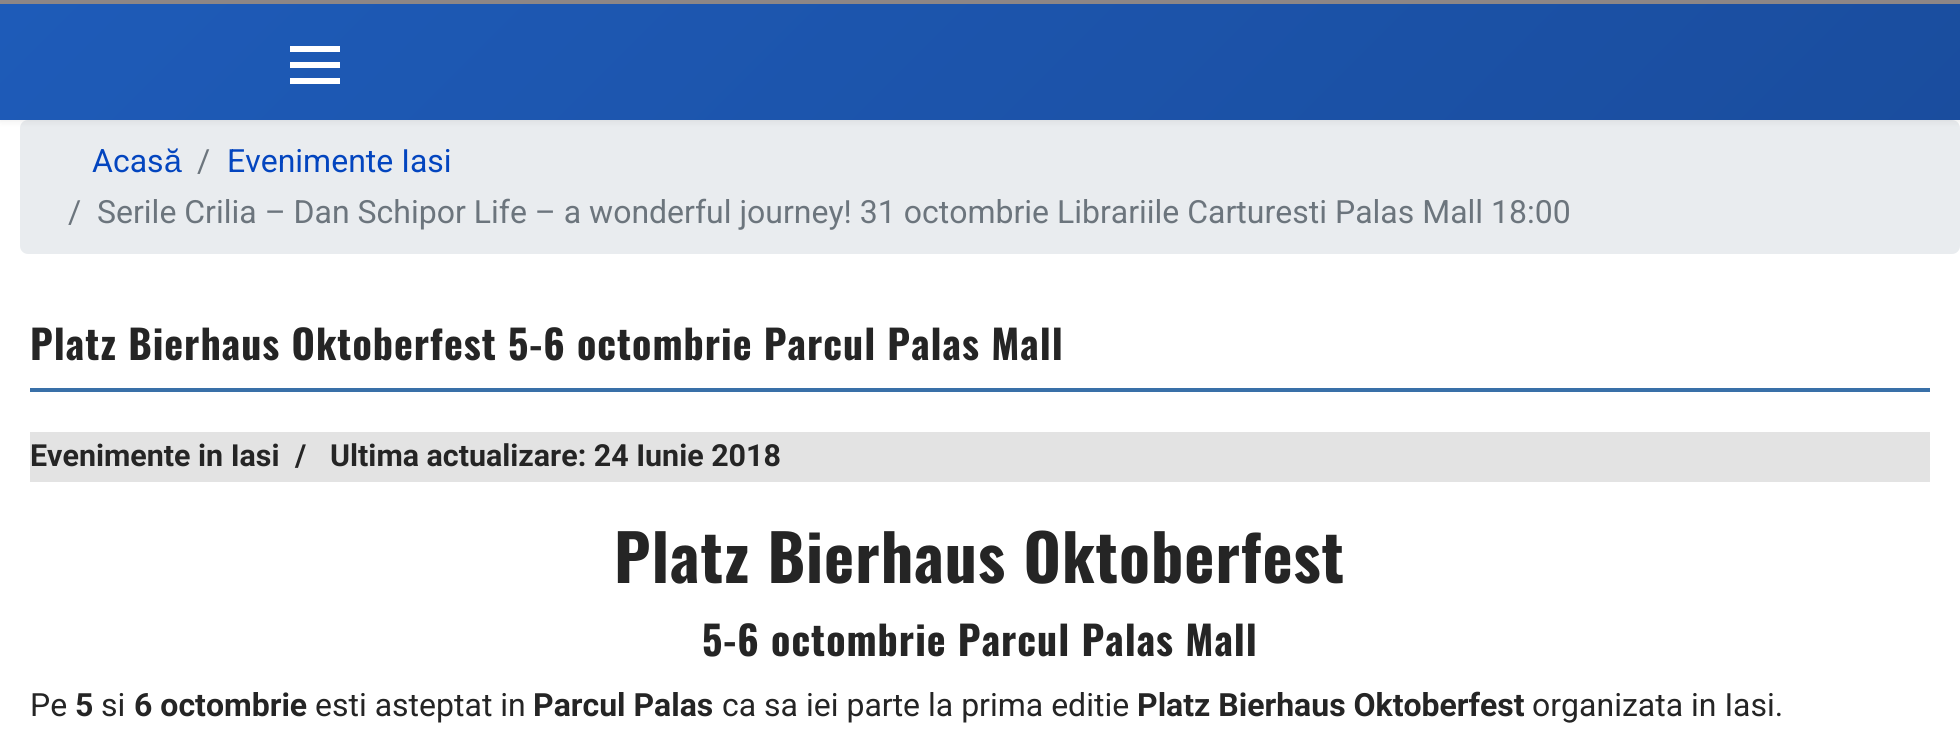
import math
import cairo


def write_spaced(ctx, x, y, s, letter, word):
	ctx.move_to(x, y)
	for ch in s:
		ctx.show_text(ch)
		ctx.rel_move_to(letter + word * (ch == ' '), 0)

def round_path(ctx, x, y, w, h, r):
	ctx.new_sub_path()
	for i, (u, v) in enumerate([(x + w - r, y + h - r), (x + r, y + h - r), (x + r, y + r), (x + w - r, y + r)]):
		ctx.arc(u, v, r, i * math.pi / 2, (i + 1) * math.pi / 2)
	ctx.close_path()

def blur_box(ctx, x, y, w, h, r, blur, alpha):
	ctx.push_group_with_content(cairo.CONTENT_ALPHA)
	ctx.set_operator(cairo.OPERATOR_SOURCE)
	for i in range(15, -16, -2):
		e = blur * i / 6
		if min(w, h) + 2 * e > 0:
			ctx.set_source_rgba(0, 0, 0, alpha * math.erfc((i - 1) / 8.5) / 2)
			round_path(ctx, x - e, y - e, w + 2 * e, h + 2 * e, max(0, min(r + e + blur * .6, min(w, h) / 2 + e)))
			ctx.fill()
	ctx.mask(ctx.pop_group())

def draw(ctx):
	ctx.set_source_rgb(1, 1, 1)
	ctx.paint()
	ctx.set_source_rgb(0.914, 0.925, 0.937)
	round_path(ctx, 20, 120, 1940, 134, 8)
	ctx.fill()
	ctx.set_source_rgb(0, 0, 0)
	blur_box(ctx, 0, 0, 1960, 120, 0, 4, 0.1)
	gradient = cairo.LinearGradient(461, -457, 1499, 581)
	gradient.add_color_stop_rgba(0, 0.118, 0.357, 0.722, 1)
	gradient.add_color_stop_rgba(1, 0.102, 0.302, 0.62, 1)
	ctx.set_source(gradient)
	ctx.rectangle(0, 4, 1960, 116)
	ctx.fill()
	ctx.set_source_rgb(0.553, 0.525, 0.525)
	ctx.rectangle(0, 0, 1960, 4)
	ctx.fill()
	ctx.set_source_rgb(1, 1, 1)
	ctx.rectangle(290, 46, 50, 6)
	ctx.rectangle(290, 62, 50, 6)
	ctx.rectangle(290, 78, 50, 6)
	ctx.fill()
	ctx.select_font_face('Roboto')
	ctx.set_font_size(32)
	ctx.set_source_rgb(0.012, 0.271, 0.749)
	ctx.move_to(92, 172)
	ctx.show_text('Acas')
	ctx.select_font_face('Liberation Sans')
	ctx.move_to(164, 172)
	ctx.show_text('ă')
	ctx.select_font_face('Roboto')
	ctx.set_source_rgb(0.424, 0.459, 0.49)
	ctx.move_to(197, 172)
	ctx.show_text('/')
	ctx.set_source_rgb(0.012, 0.271, 0.749)
	ctx.move_to(227, 172)
	ctx.show_text('Evenimente Iasi')
	ctx.set_source_rgb(0.424, 0.459, 0.49)
	ctx.move_to(68, 223)
	ctx.show_text('/')
	ctx.move_to(97, 223)
	ctx.show_text('Serile Crilia – Dan Schipor Life – a wonderful journey! 31 octombrie Librariile Carturesti Palas Mall 18:00')
	ctx.set_source_rgb(0.224, 0.439, 0.659)
	ctx.rectangle(30, 388, 1900, 4)
	ctx.fill()
	ctx.select_font_face('Oswald', cairo.FONT_SLANT_NORMAL, cairo.FONT_WEIGHT_BOLD)
	ctx.set_font_size(40)
	ctx.set_source_rgb(0.145, 0.145, 0.145)
	write_spaced(ctx, 30, 360, 'Platz Bierhaus Oktoberfest 5-6 octombrie Parcul Palas Mall', 1, 0)
	ctx.set_source_rgb(0.89, 0.89, 0.89)
	ctx.rectangle(30, 432, 1900, 50)
	ctx.fill()
	ctx.select_font_face('Roboto', cairo.FONT_SLANT_NORMAL, cairo.FONT_WEIGHT_BOLD)
	ctx.set_font_size(30.4)
	ctx.set_source_rgb(0.145, 0.145, 0.145)
	for x, y, s in [
		(30, 466, 'Evenimente in Iasi'),
		(295, 466, '/'),
		(330, 466, 'Ultima actualizare: 24 Iunie 2018'),
	]:
		ctx.move_to(x, y)
		ctx.show_text(s)
	ctx.select_font_face('Oswald', cairo.FONT_SLANT_NORMAL, cairo.FONT_WEIGHT_BOLD)
	ctx.set_font_size(64)
	write_spaced(ctx, 614, 583, 'Platz Bierhaus Oktoberfest', 1, 0)
	ctx.set_font_size(40)
	write_spaced(ctx, 702, 656, '5-6 octombrie Parcul Palas Mall', 1, 0)
	ctx.select_font_face('Roboto')
	ctx.set_font_size(32)
	ctx.move_to(30, 716)
	ctx.show_text('Pe')
	ctx.select_font_face('Roboto', cairo.FONT_SLANT_NORMAL, cairo.FONT_WEIGHT_BOLD)
	ctx.move_to(75, 716)
	ctx.show_text('5')
	ctx.select_font_face('Roboto')
	ctx.move_to(101, 716)
	ctx.show_text('si')
	ctx.select_font_face('Roboto', cairo.FONT_SLANT_NORMAL, cairo.FONT_WEIGHT_BOLD)
	ctx.move_to(134, 716)
	ctx.show_text('6 octombrie')
	ctx.select_font_face('Roboto')
	ctx.move_to(315, 716)
	ctx.show_text('esti asteptat in')
	ctx.select_font_face('Roboto', cairo.FONT_SLANT_NORMAL, cairo.FONT_WEIGHT_BOLD)
	ctx.move_to(533, 716)
	ctx.show_text('Parcul Palas')
	ctx.select_font_face('Roboto')
	ctx.move_to(722, 716)
	ctx.show_text('ca sa iei parte la prima editie')
	ctx.select_font_face('Roboto', cairo.FONT_SLANT_NORMAL, cairo.FONT_WEIGHT_BOLD)
	ctx.move_to(1137, 716)
	ctx.show_text('Platz Bierhaus Oktoberfest')
	ctx.select_font_face('Roboto')
	ctx.move_to(1532, 716)
	ctx.show_text('organizata in Iasi.')


surface = cairo.ImageSurface(cairo.FORMAT_RGB24, 1960, 740)
ctx = cairo.Context(surface)
options = cairo.FontOptions()
options.set_hint_metrics(cairo.HINT_METRICS_OFF)
options.set_hint_style(cairo.HINT_STYLE_NONE)
ctx.set_font_options(options)
ctx.set_miter_limit(4)
draw(ctx)
surface.write_to_png('image.png')
